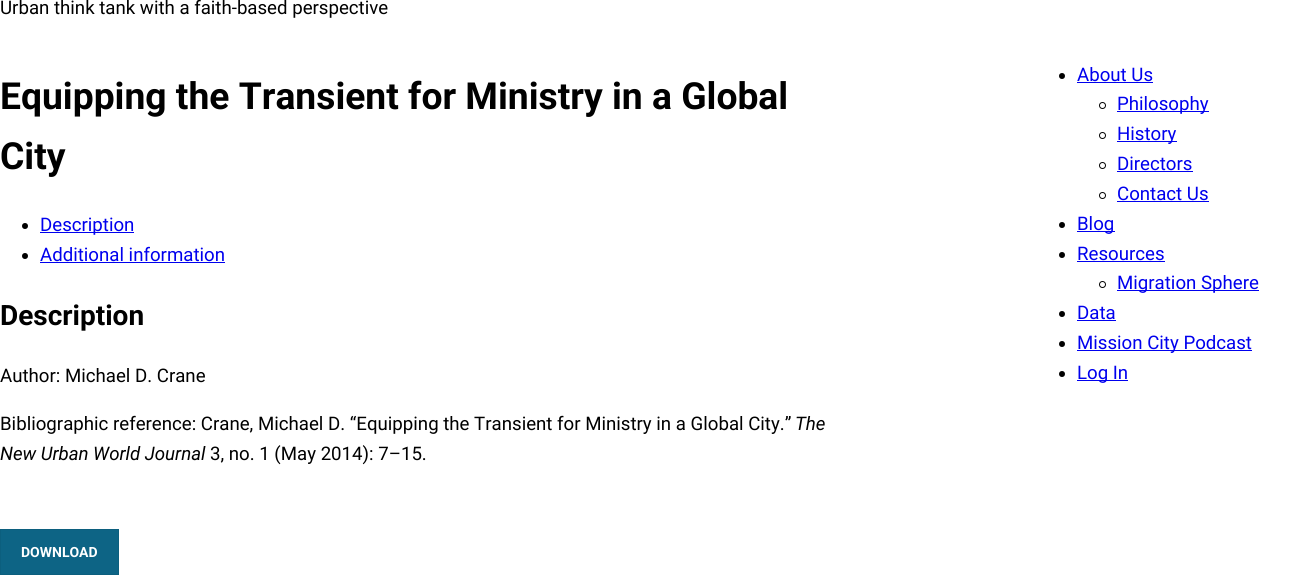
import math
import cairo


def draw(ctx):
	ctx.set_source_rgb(1, 1, 1)
	ctx.paint()
	ctx.select_font_face('Roboto')
	ctx.set_font_size(18.65)
	ctx.set_source_rgb(0, 0, 0)
	ctx.move_to(0, 14)
	ctx.show_text('Urban think tank with a faith-based perspective')
	ctx.new_path()
	ctx.arc(1062, 76, 3, 0, 2 * math.pi)
	ctx.fill()
	ctx.set_source_rgb(0, 0, 0.933)
	ctx.move_to(1077, 81)
	ctx.show_text('About Us')
	ctx.rectangle(1077, 82, 76, 1)
	ctx.fill()
	ctx.arc(1102.5, 105.5, 3, 0, 2 * math.pi)
	ctx.set_source_rgb(0, 0, 0)
	ctx.set_line_width(1)
	ctx.stroke()
	ctx.set_source_rgb(0, 0, 0.933)
	ctx.rectangle(1117, 111, 92, 1)
	ctx.fill()
	ctx.move_to(1117, 110)
	ctx.show_text('Philosophy')
	ctx.new_path()
	ctx.arc(1102.5, 135.5, 3, 0, 2 * math.pi)
	ctx.set_source_rgb(0, 0, 0)
	ctx.stroke()
	ctx.set_source_rgb(0, 0, 0.933)
	ctx.rectangle(1117, 141, 60, 1)
	ctx.fill()
	ctx.move_to(1117, 140)
	ctx.show_text('History')
	ctx.new_path()
	ctx.arc(1102.5, 165.5, 3, 0, 2 * math.pi)
	ctx.set_source_rgb(0, 0, 0)
	ctx.stroke()
	ctx.set_source_rgb(0, 0, 0.933)
	ctx.move_to(1117, 170)
	ctx.show_text('Directors')
	ctx.rectangle(1117, 171, 76, 1)
	ctx.fill()
	ctx.arc(1102.5, 195.5, 3, 0, 2 * math.pi)
	ctx.set_source_rgb(0, 0, 0)
	ctx.stroke()
	ctx.set_source_rgb(0, 0, 0.933)
	ctx.move_to(1117, 200)
	ctx.show_text('Contact Us')
	ctx.rectangle(1117, 201, 92, 1)
	ctx.fill()
	ctx.set_source_rgb(0, 0, 0)
	ctx.arc(1062, 225, 3, 0, 2 * math.pi)
	ctx.fill()
	ctx.set_source_rgb(0, 0, 0.933)
	ctx.rectangle(1077, 231, 38, 1)
	ctx.fill()
	ctx.move_to(1077, 230)
	ctx.show_text('Blog')
	ctx.set_source_rgb(0, 0, 0)
	ctx.new_path()
	ctx.arc(1062, 255, 3, 0, 2 * math.pi)
	ctx.fill()
	ctx.set_source_rgb(0, 0, 0.933)
	ctx.move_to(1077, 260)
	ctx.show_text('Resources')
	ctx.rectangle(1077, 261, 88, 1)
	ctx.fill()
	ctx.arc(1102.5, 284.5, 3, 0, 2 * math.pi)
	ctx.set_source_rgb(0, 0, 0)
	ctx.stroke()
	ctx.set_source_rgb(0, 0, 0.933)
	ctx.rectangle(1117, 290, 142, 1)
	ctx.fill()
	ctx.move_to(1117, 289)
	ctx.show_text('Migration Sphere')
	ctx.set_source_rgb(0, 0, 0)
	ctx.new_path()
	ctx.arc(1062, 314, 3, 0, 2 * math.pi)
	ctx.fill()
	ctx.set_source_rgb(0, 0, 0.933)
	ctx.move_to(1077, 319)
	ctx.show_text('Data')
	ctx.rectangle(1077, 320, 39, 1)
	ctx.fill()
	ctx.set_source_rgb(0, 0, 0)
	ctx.arc(1062, 344, 3, 0, 2 * math.pi)
	ctx.fill()
	ctx.set_source_rgb(0, 0, 0.933)
	ctx.rectangle(1077, 350, 175, 1)
	ctx.fill()
	ctx.move_to(1077, 349)
	ctx.show_text('Mission City Podcast')
	ctx.set_source_rgb(0, 0, 0)
	ctx.new_path()
	ctx.arc(1062, 374, 3, 0, 2 * math.pi)
	ctx.fill()
	ctx.set_source_rgb(0, 0, 0.933)
	ctx.rectangle(1077, 380, 51, 1)
	ctx.fill()
	ctx.move_to(1077, 379)
	ctx.show_text('Log In')
	ctx.select_font_face('Roboto', cairo.FONT_SLANT_NORMAL, cairo.FONT_WEIGHT_BOLD)
	ctx.set_font_size(37.25)
	ctx.set_source_rgb(0, 0, 0)
	ctx.move_to(0, 109)
	ctx.show_text('Equipping the Transient for Ministry in a Global')
	ctx.move_to(0, 169)
	ctx.show_text('City')
	ctx.new_path()
	ctx.arc(25, 226, 3, 0, 2 * math.pi)
	ctx.fill()
	ctx.set_source_rgb(0, 0, 0.933)
	ctx.rectangle(40, 232, 94, 1)
	ctx.fill()
	ctx.select_font_face('Roboto')
	ctx.set_font_size(18.65)
	ctx.move_to(40, 231)
	ctx.show_text('Description')
	ctx.set_source_rgb(0, 0, 0)
	ctx.new_path()
	ctx.arc(25, 256, 3, 0, 2 * math.pi)
	ctx.fill()
	ctx.set_source_rgb(0, 0, 0.933)
	ctx.move_to(40, 261)
	ctx.show_text('Additional information')
	ctx.rectangle(40, 262, 185, 1)
	ctx.fill()
	ctx.select_font_face('Roboto', cairo.FONT_SLANT_NORMAL, cairo.FONT_WEIGHT_BOLD)
	ctx.set_font_size(28)
	ctx.set_source_rgb(0, 0, 0)
	ctx.move_to(0, 325)
	ctx.show_text('Description')
	ctx.select_font_face('Roboto')
	ctx.set_font_size(18.65)
	ctx.move_to(0, 382)
	ctx.show_text('Author: Michael D. Crane')
	ctx.move_to(0, 430)
	ctx.show_text('Bibliographic reference: Crane, Michael D. “Equipping the Transient for Ministry in a Global City.”')
	ctx.select_font_face('Roboto', cairo.FONT_SLANT_ITALIC)
	ctx.move_to(795, 430)
	ctx.show_text('The')
	ctx.move_to(0, 460)
	ctx.show_text('New Urban World Journal')
	ctx.select_font_face('Roboto')
	ctx.move_to(210, 460)
	ctx.show_text('3, no. 1 (May 2014): 7–15.')
	ctx.set_source_rgb(0.051, 0.392, 0.522)
	ctx.rectangle(0.5, 529.5, 118, 45)
	ctx.fill_preserve()
	ctx.set_source_rgb(0.047, 0.373, 0.494)
	ctx.stroke()
	ctx.select_font_face('Roboto', cairo.FONT_SLANT_NORMAL, cairo.FONT_WEIGHT_BOLD)
	ctx.set_font_size(14)
	ctx.set_source_rgb(1, 1, 1)
	ctx.move_to(21, 557)
	ctx.show_text('DOWNLOAD')


surface = cairo.ImageSurface(cairo.FORMAT_RGB24, 1309, 579)
ctx = cairo.Context(surface)
options = cairo.FontOptions()
options.set_hint_metrics(cairo.HINT_METRICS_OFF)
options.set_hint_style(cairo.HINT_STYLE_NONE)
ctx.set_font_options(options)
ctx.set_miter_limit(4)
draw(ctx)
surface.write_to_png('image.png')
